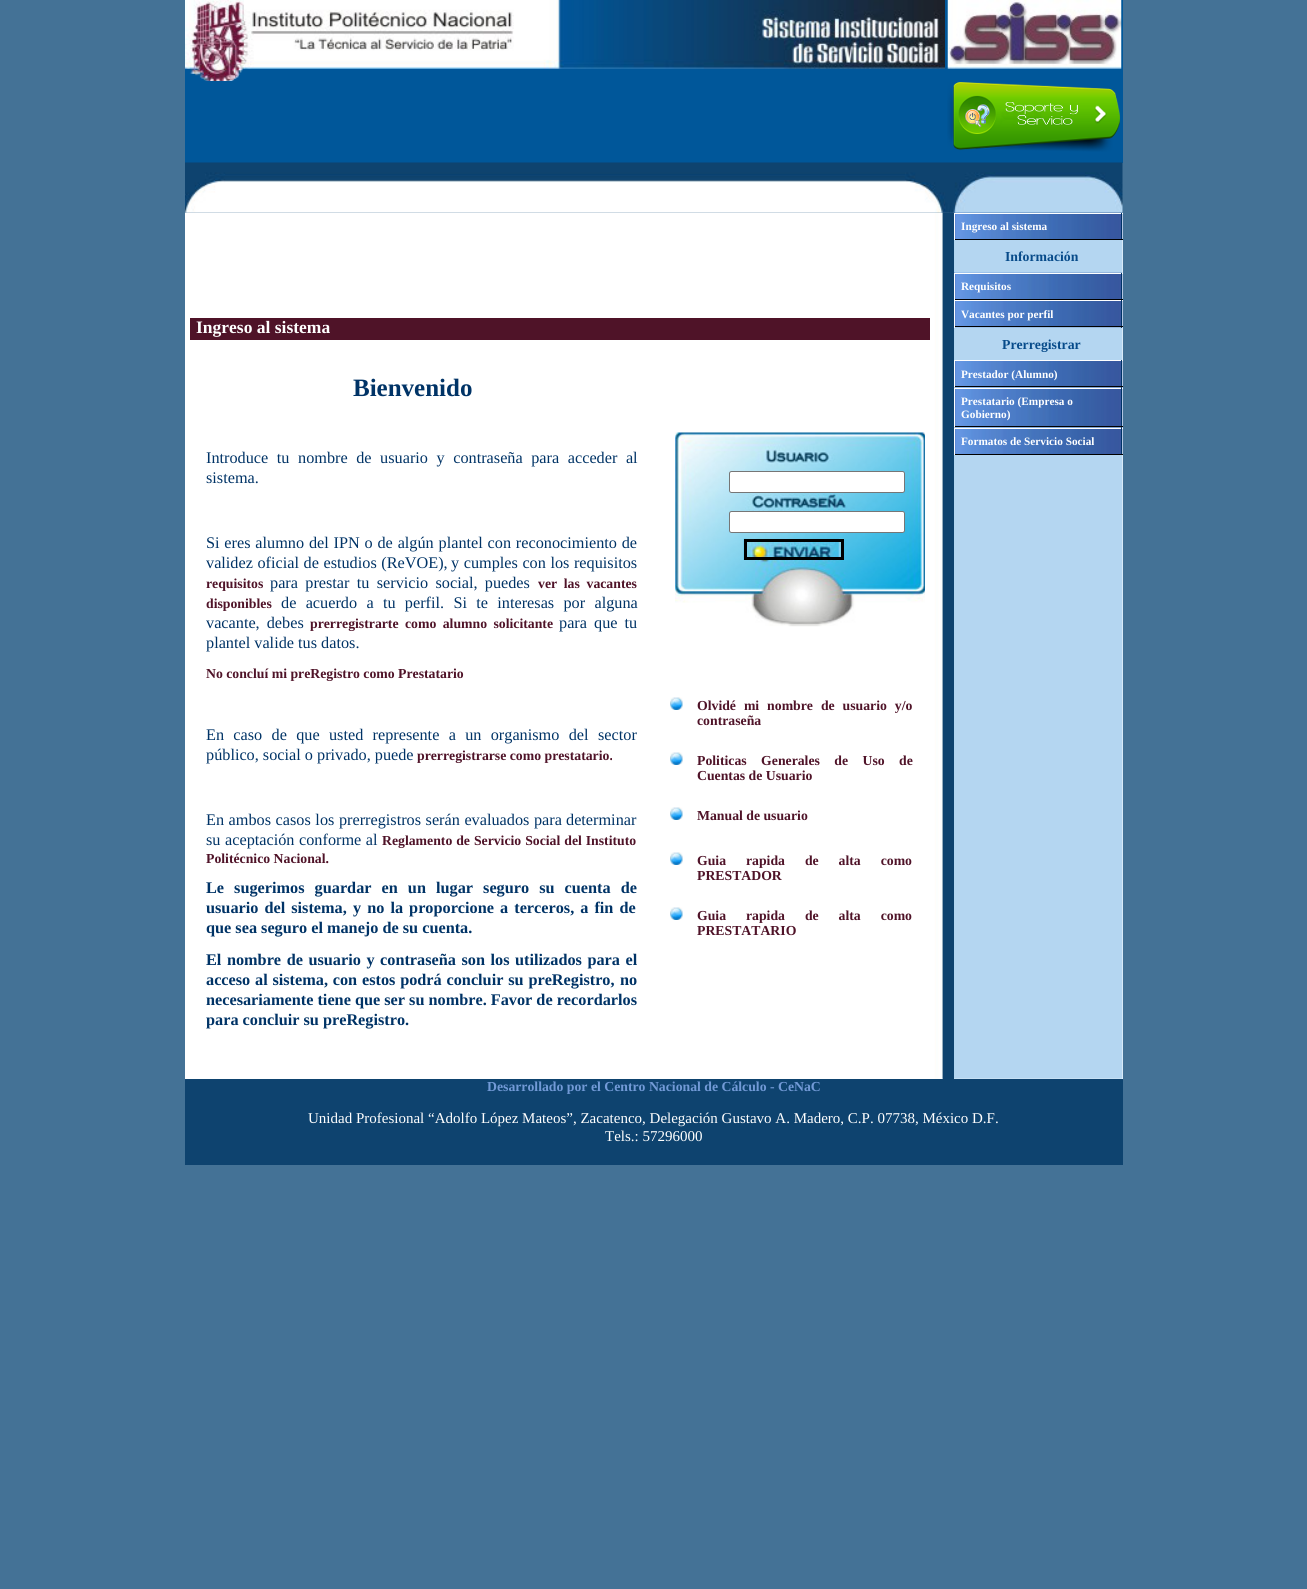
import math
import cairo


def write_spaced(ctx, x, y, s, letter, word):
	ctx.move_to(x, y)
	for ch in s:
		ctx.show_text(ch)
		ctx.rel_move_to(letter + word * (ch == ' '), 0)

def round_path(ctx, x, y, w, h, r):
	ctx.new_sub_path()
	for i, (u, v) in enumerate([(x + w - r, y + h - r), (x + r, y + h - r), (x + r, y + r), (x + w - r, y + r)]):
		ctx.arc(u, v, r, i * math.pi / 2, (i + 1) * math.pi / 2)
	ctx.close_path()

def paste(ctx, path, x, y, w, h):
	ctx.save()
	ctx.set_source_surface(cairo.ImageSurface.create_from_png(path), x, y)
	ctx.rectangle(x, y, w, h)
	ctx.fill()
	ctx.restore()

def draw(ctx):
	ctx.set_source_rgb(0.267, 0.447, 0.588)
	ctx.paint()
	ctx.set_source_rgb(0, 0.341, 0.604)
	ctx.rectangle(185, 0, 938, 163)
	ctx.fill()
	paste(ctx, 'media/1.png', 185, 0, 760, 81)
	paste(ctx, 'media/2.png', 947, 0, 175, 69)
	paste(ctx, 'media/3.png', 947, 82, 173, 70)
	ctx.set_source_rgb(1, 1, 1)
	ctx.rectangle(185, 214, 938, 865)
	ctx.fill()
	paste(ctx, 'media/5.png', 185, 212, 938, 867)
	paste(ctx, 'media/4.png', 185, 162, 938, 51)
	ctx.set_source_rgb(0.055, 0.263, 0.435)
	ctx.rectangle(943, 213, 11, 866)
	ctx.fill()
	ctx.set_source_rgb(0.31, 0.078, 0.157)
	ctx.rectangle(190, 318, 740, 22)
	ctx.fill()
	ctx.select_font_face('Liberation Serif', cairo.FONT_SLANT_NORMAL, cairo.FONT_WEIGHT_BOLD)
	ctx.set_font_size(17.5)
	ctx.set_source_rgb(1, 1, 1)
	ctx.move_to(196, 333)
	ctx.show_text('Ingreso al sistema')
	ctx.set_font_size(25)
	ctx.set_source_rgb(0, 0.2, 0.4)
	ctx.move_to(353, 396)
	ctx.show_text('Bienvenido')
	ctx.select_font_face('Liberation Serif')
	ctx.set_font_size(16.25)
	write_spaced(ctx, 206, 463, 'Introduce tu nombre de usuario y contraseña para acceder al', 0, 4.5)
	ctx.move_to(206, 483)
	ctx.show_text('sistema.')
	write_spaced(ctx, 206, 548, 'Si eres alumno del IPN o de algún plantel con reconocimiento de', 0, 0.75)
	write_spaced(ctx, 206, 568, 'validez oficial de estudios (ReVOE),', 0, 0.5)
	write_spaced(ctx, 451, 568, 'y cumples con los requisitos', 0, 0.5)
	ctx.select_font_face('Liberation Serif', cairo.FONT_SLANT_NORMAL, cairo.FONT_WEIGHT_BOLD)
	ctx.set_font_size(13.75)
	ctx.set_source_rgb(0.31, 0.078, 0.157)
	ctx.move_to(206, 588)
	ctx.show_text('requisitos')
	ctx.select_font_face('Liberation Serif')
	ctx.set_font_size(16.25)
	ctx.set_source_rgb(0, 0.2, 0.4)
	write_spaced(ctx, 270, 588, 'para prestar tu servicio social, puedes', 0, 3.25)
	ctx.select_font_face('Liberation Serif', cairo.FONT_SLANT_NORMAL, cairo.FONT_WEIGHT_BOLD)
	ctx.set_font_size(13.75)
	ctx.set_source_rgb(0.31, 0.078, 0.157)
	write_spaced(ctx, 538, 588, 'ver las vacantes', 0, 3.25)
	ctx.move_to(206, 608)
	ctx.show_text('disponibles')
	ctx.select_font_face('Liberation Serif')
	ctx.set_font_size(16.25)
	ctx.set_source_rgb(0, 0.2, 0.4)
	write_spaced(ctx, 281, 608, 'de acuerdo a tu perfil. Si te interesas por alguna', 0, 5.25)
	write_spaced(ctx, 206, 628, 'vacante, debes', 0, 3)
	ctx.select_font_face('Liberation Serif', cairo.FONT_SLANT_NORMAL, cairo.FONT_WEIGHT_BOLD)
	ctx.set_font_size(13.75)
	ctx.set_source_rgb(0.31, 0.078, 0.157)
	write_spaced(ctx, 310, 628, 'prerregistrarte como alumno solicitante', 0, 3)
	ctx.select_font_face('Liberation Serif')
	ctx.set_font_size(16.25)
	ctx.set_source_rgb(0, 0.2, 0.4)
	write_spaced(ctx, 559, 628, 'para que tu', 0, 3)
	ctx.move_to(206, 648)
	ctx.show_text('plantel valide tus datos.')
	ctx.select_font_face('Liberation Serif', cairo.FONT_SLANT_NORMAL, cairo.FONT_WEIGHT_BOLD)
	ctx.set_font_size(13.75)
	ctx.set_source_rgb(0.31, 0.078, 0.157)
	ctx.move_to(206, 678)
	ctx.show_text('No concluí mi preRegistro como Prestatario')
	ctx.select_font_face('Liberation Serif')
	ctx.set_font_size(16.25)
	ctx.set_source_rgb(0, 0.2, 0.4)
	write_spaced(ctx, 206, 740, 'En caso de que usted represente a un organismo del', 0, 5.25)
	ctx.move_to(598, 740)
	ctx.show_text('sector')
	ctx.move_to(206, 760)
	ctx.show_text('público, social o privado, puede')
	ctx.select_font_face('Liberation Serif', cairo.FONT_SLANT_NORMAL, cairo.FONT_WEIGHT_BOLD)
	ctx.set_font_size(13.75)
	ctx.set_source_rgb(0.31, 0.078, 0.157)
	ctx.move_to(417, 760)
	ctx.show_text('prerregistrarse como prestatario.')
	ctx.select_font_face('Liberation Serif')
	ctx.set_font_size(16.25)
	ctx.set_source_rgb(0, 0.2, 0.4)
	write_spaced(ctx, 206, 825, 'En ambos casos los prerregistros serán evaluados para', 0, 0.5)
	ctx.move_to(566, 825)
	ctx.show_text('determinar')
	write_spaced(ctx, 206, 845, 'su aceptación conforme al', 0, 0.5)
	ctx.select_font_face('Liberation Serif', cairo.FONT_SLANT_NORMAL, cairo.FONT_WEIGHT_BOLD)
	ctx.set_font_size(13.75)
	ctx.set_source_rgb(0.31, 0.078, 0.157)
	write_spaced(ctx, 382, 845, 'Reglamento de Servicio Social del Instituto', 0, 0.5)
	ctx.move_to(206, 863)
	ctx.show_text('Politécnico Nacional.')
	ctx.set_font_size(16.25)
	ctx.set_source_rgb(0, 0.2, 0.4)
	write_spaced(ctx, 206, 893, 'Le sugerimos guardar en un lugar seguro su cuenta de', 0, 6)
	write_spaced(ctx, 206, 913, 'usuario del sistema,', 0, 2)
	write_spaced(ctx, 353, 913, 'y no la proporcione a terceros, a fin de', 0, 2)
	ctx.move_to(206, 933)
	ctx.show_text('que sea seguro el manejo de su cuenta.')
	write_spaced(ctx, 206, 965, 'El nombre de usuario y contraseña son los utilizados para el', 0, 1.5)
	ctx.move_to(206, 985)
	ctx.show_text('acceso')
	write_spaced(ctx, 255, 985, 'al sistema, con estos podrá concluir su preRegistro,', 0, 0.75)
	for x, y, s in [
		(620, 985, 'no'),
		(206, 1005, 'necesariamente tiene que ser su nombre. Favor de recordarlos'),
		(206, 1025, 'para concluir su preRegistro.'),
	]:
		ctx.move_to(x, y)
		ctx.show_text(s)
	paste(ctx, 'media/6.png', 675, 432, 250, 195)
	ctx.set_source_rgb(1, 1, 1)
	round_path(ctx, 729.5, 471.5, 175, 21, 2)
	ctx.fill_preserve()
	ctx.set_source_rgb(0.463, 0.463, 0.463)
	ctx.set_line_width(1)
	ctx.stroke()
	ctx.set_source_rgb(1, 1, 1)
	round_path(ctx, 729.5, 511.5, 175, 21, 2)
	ctx.fill_preserve()
	ctx.set_source_rgb(0.463, 0.463, 0.463)
	ctx.stroke()
	paste(ctx, 'media/7.png', 743, 538, 101, 22)
	ctx.rectangle(745.5, 540.5, 97, 18)
	ctx.set_source_rgb(0, 0, 0)
	ctx.set_line_width(3)
	ctx.stroke()
	paste(ctx, 'media/8.png', 670, 697, 13, 13)
	ctx.set_font_size(13.75)
	ctx.set_source_rgb(0.31, 0.078, 0.157)
	write_spaced(ctx, 697, 710, 'Olvidé mi nombre de usuario y/o', 0, 4.5)
	ctx.move_to(697, 725)
	ctx.show_text('contraseña')
	paste(ctx, 'media/8.png', 670, 752, 13, 13)
	write_spaced(ctx, 697, 765, 'Politicas Generales de Uso de', 0, 11)
	ctx.move_to(697, 780)
	ctx.show_text('Cuentas de Usuario')
	paste(ctx, 'media/8.png', 670, 807, 13, 13)
	ctx.move_to(697, 820)
	ctx.show_text('Manual de usuario')
	paste(ctx, 'media/8.png', 670, 852, 13, 13)
	write_spaced(ctx, 697, 865, 'Guia rapida de alta como', 0, 16.5)
	ctx.move_to(697, 880)
	ctx.show_text('PRESTADOR')
	paste(ctx, 'media/8.png', 670, 907, 13, 13)
	write_spaced(ctx, 697, 920, 'Guia rapida de alta como', 0, 16.5)
	ctx.move_to(697, 935)
	ctx.show_text('PRESTATARIO')
	paste(ctx, 'media/9.png', 954, 212, 169, 27)
	ctx.set_source_rgb(1, 1, 1)
	ctx.rectangle(954, 213, 169, 1)
	ctx.fill()
	ctx.set_source_rgb(0, 0.2, 0.4)
	ctx.rectangle(1121, 213, 1, 27)
	ctx.fill()
	ctx.set_source_rgb(0, 0, 0)
	ctx.rectangle(954, 239, 169, 1)
	ctx.fill()
	ctx.set_source_rgb(1, 1, 1)
	ctx.rectangle(954, 213, 1, 27)
	ctx.fill()
	ctx.set_font_size(11.25)
	ctx.move_to(961, 230)
	ctx.show_text('Ingreso al sistema')
	ctx.set_font_size(13.75)
	ctx.set_source_rgb(0.031, 0.294, 0.541)
	ctx.move_to(1005, 261)
	ctx.show_text('Información')
	paste(ctx, 'media/10.png', 954, 272, 169, 27)
	ctx.set_source_rgb(1, 1, 1)
	ctx.rectangle(954, 273, 169, 1)
	ctx.fill()
	ctx.set_source_rgb(0, 0.2, 0.4)
	ctx.rectangle(1121, 273, 1, 27)
	ctx.fill()
	ctx.set_source_rgb(0, 0, 0)
	ctx.rectangle(954, 299, 169, 1)
	ctx.fill()
	ctx.set_source_rgb(1, 1, 1)
	ctx.rectangle(954, 273, 1, 27)
	ctx.fill()
	ctx.set_font_size(11.25)
	ctx.move_to(961, 290)
	ctx.show_text('Requisitos')
	paste(ctx, 'media/11.png', 955, 301, 168, 27)
	ctx.rectangle(954, 300, 169, 1)
	ctx.fill()
	ctx.set_source_rgb(0, 0.2, 0.4)
	ctx.rectangle(1121, 300, 1, 28)
	ctx.fill()
	ctx.set_source_rgb(0, 0, 0)
	ctx.rectangle(954, 326, 169, 1)
	ctx.fill()
	ctx.set_source_rgb(1, 1, 1)
	ctx.rectangle(954, 300, 1, 28)
	ctx.fill()
	ctx.move_to(961, 318)
	ctx.show_text('Vacantes por perfil')
	ctx.set_font_size(13.75)
	ctx.set_source_rgb(0.031, 0.294, 0.541)
	ctx.move_to(1002, 349)
	ctx.show_text('Prerregistrar')
	paste(ctx, 'media/11.png', 955, 361, 168, 27)
	ctx.set_source_rgb(1, 1, 1)
	ctx.rectangle(954, 360, 169, 1)
	ctx.fill()
	ctx.set_source_rgb(0, 0.2, 0.4)
	ctx.rectangle(1121, 360, 1, 28)
	ctx.fill()
	ctx.set_source_rgb(0, 0, 0)
	ctx.rectangle(954, 386, 169, 1)
	ctx.fill()
	ctx.set_source_rgb(1, 1, 1)
	ctx.rectangle(954, 360, 1, 28)
	ctx.fill()
	ctx.set_font_size(11.25)
	ctx.move_to(961, 378)
	ctx.show_text('Prestador (Alumno)')
	paste(ctx, 'media/12.png', 954, 387, 169, 41)
	ctx.rectangle(954, 388, 169, 1)
	ctx.fill()
	ctx.set_source_rgb(0, 0.2, 0.4)
	ctx.rectangle(1121, 388, 1, 40)
	ctx.fill()
	ctx.set_source_rgb(0, 0, 0)
	ctx.rectangle(954, 426, 169, 1)
	ctx.fill()
	ctx.set_source_rgb(1, 1, 1)
	ctx.rectangle(954, 388, 1, 40)
	ctx.fill()
	ctx.move_to(961, 405)
	ctx.show_text('Prestatario (Empresa o')
	ctx.move_to(961, 418)
	ctx.show_text('Gobierno)')
	paste(ctx, 'media/13.png', 954, 427, 169, 27)
	ctx.rectangle(954, 428, 169, 1)
	ctx.fill()
	ctx.set_source_rgb(0, 0.2, 0.4)
	ctx.rectangle(1121, 428, 1, 27)
	ctx.fill()
	ctx.set_source_rgb(0, 0, 0)
	ctx.rectangle(954, 454, 169, 1)
	ctx.fill()
	ctx.set_source_rgb(1, 1, 1)
	ctx.rectangle(954, 428, 1, 27)
	ctx.fill()
	ctx.move_to(961, 445)
	ctx.show_text('Formatos de Servicio Social')
	ctx.set_source_rgb(0.055, 0.263, 0.435)
	ctx.rectangle(185, 1079, 938, 86)
	ctx.fill()
	ctx.set_font_size(13.75)
	ctx.set_source_rgb(0.447, 0.604, 0.843)
	ctx.move_to(487, 1091)
	ctx.show_text('Desarrollado por el Centro Nacional de Cálculo - CeNaC')
	ctx.select_font_face('Liberation Serif')
	ctx.set_font_size(15)
	ctx.set_source_rgb(1, 1, 1)
	ctx.move_to(308, 1123)
	ctx.show_text('Unidad Profesional “Adolfo López Mateos”, Zacatenco, Delegación Gustavo A. Madero, C.P. 07738, México D.F.')
	ctx.move_to(605, 1141)
	ctx.show_text('Tels.: 57296000')


surface = cairo.ImageSurface(cairo.FORMAT_RGB24, 1307, 1589)
ctx = cairo.Context(surface)
options = cairo.FontOptions()
options.set_hint_metrics(cairo.HINT_METRICS_OFF)
options.set_hint_style(cairo.HINT_STYLE_NONE)
ctx.set_font_options(options)
ctx.set_miter_limit(4)
draw(ctx)
surface.write_to_png('image.png')
